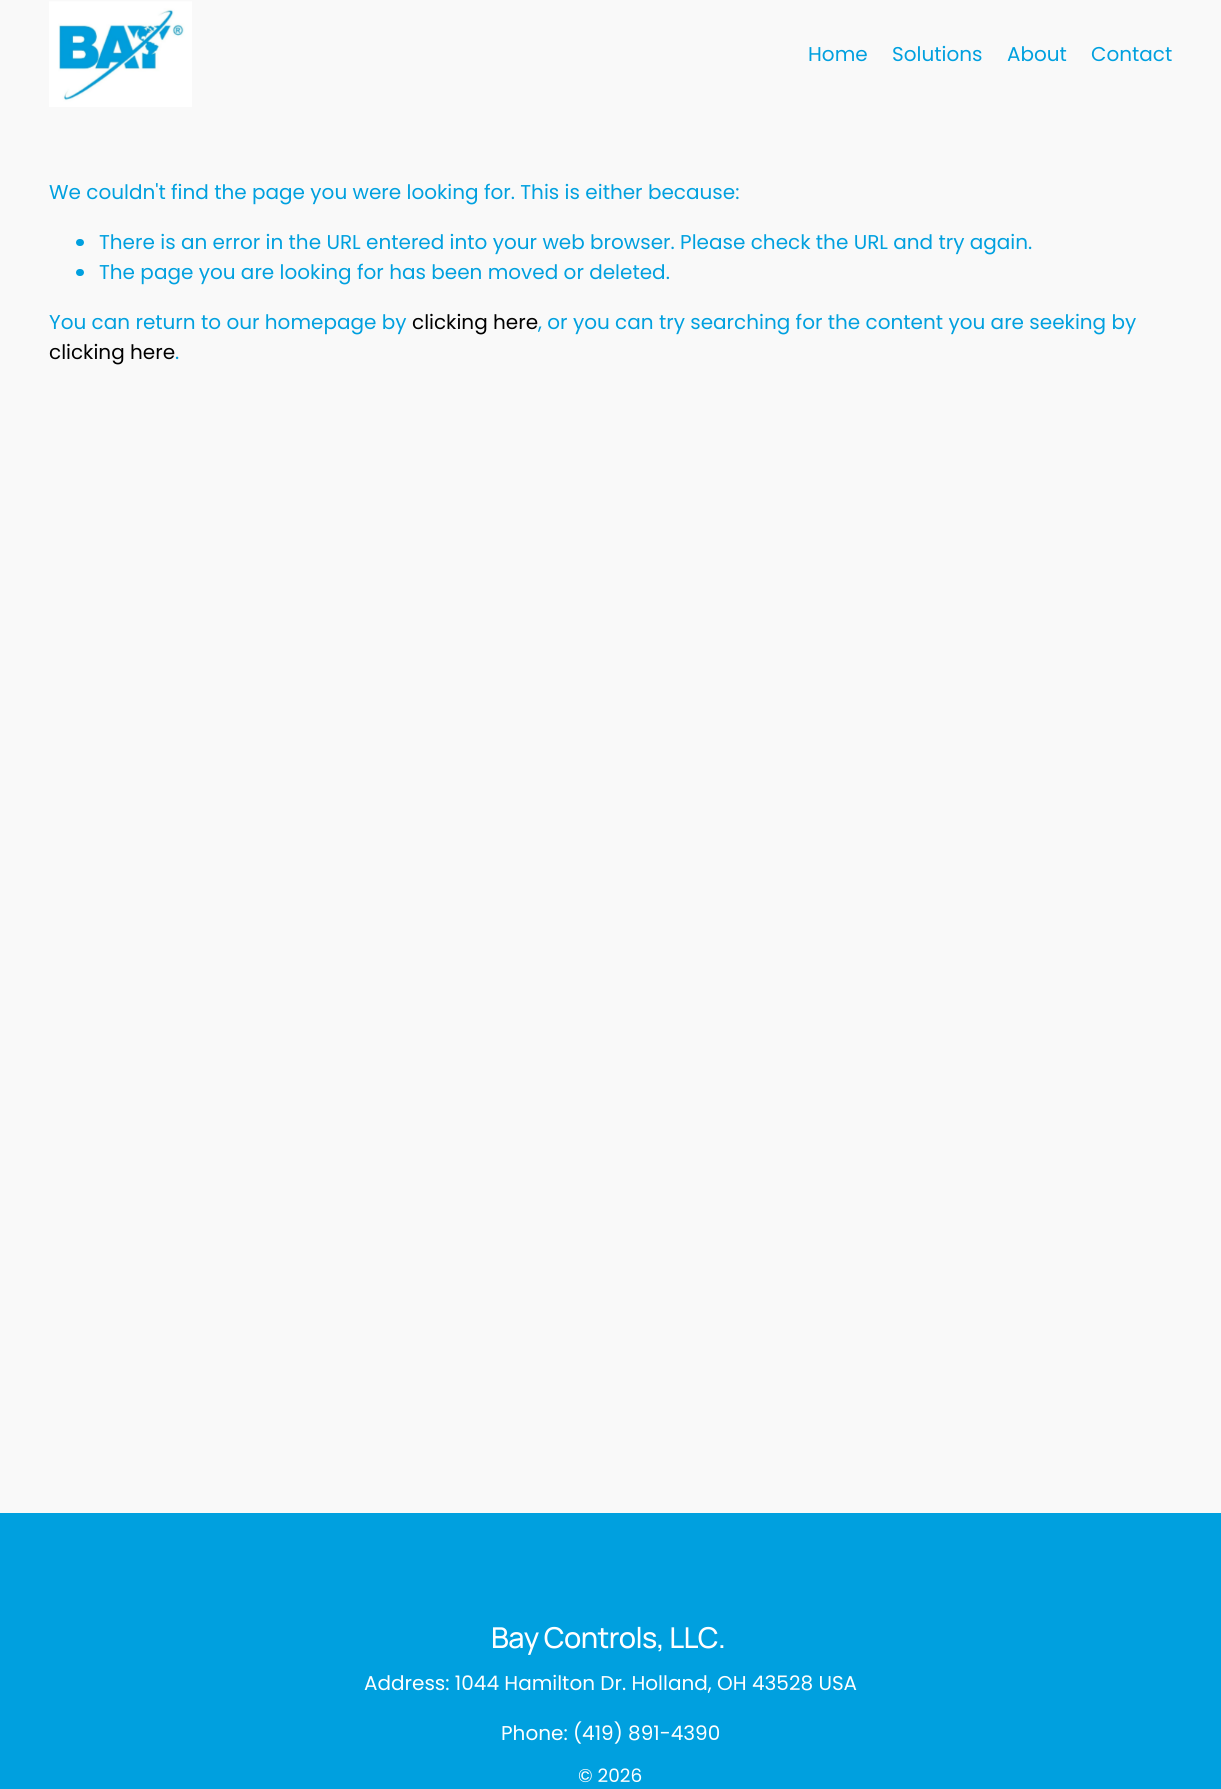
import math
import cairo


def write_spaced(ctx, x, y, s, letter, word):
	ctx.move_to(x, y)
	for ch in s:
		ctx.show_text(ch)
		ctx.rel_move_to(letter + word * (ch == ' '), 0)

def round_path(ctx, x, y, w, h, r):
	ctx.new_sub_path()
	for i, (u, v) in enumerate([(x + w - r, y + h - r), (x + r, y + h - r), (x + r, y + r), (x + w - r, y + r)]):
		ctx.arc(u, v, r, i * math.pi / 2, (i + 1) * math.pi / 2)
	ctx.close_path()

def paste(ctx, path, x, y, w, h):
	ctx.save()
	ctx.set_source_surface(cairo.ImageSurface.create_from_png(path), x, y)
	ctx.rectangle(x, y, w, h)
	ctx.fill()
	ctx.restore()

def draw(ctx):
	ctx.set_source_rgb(0.973, 0.973, 0.973)
	ctx.paint()
	paste(ctx, 'media/1.png', 49, 1, 143, 106)
	ctx.select_font_face('Poppins')
	ctx.set_font_size(20)
	ctx.set_source_rgb(0, 0.627, 0.875)
	for x, y, s in [
		(808, 61, 'Home'),
		(892, 61, 'Solutions'),
		(1007, 61, 'About'),
		(1091, 61, 'Contact'),
		(49, 199, 'We couldn\'t find the page you were looking for. This is either because:'),
	]:
		ctx.move_to(x, y)
		ctx.show_text(s)
	round_path(ctx, 76, 239, 8, 7, 3.5)
	ctx.fill()
	ctx.move_to(99, 249)
	ctx.show_text('There is an error in the URL entered into your web browser. Please check the URL and try again.')
	round_path(ctx, 76, 269, 8, 7, 3.5)
	ctx.fill()
	ctx.move_to(99, 279)
	ctx.show_text('The page you are looking for has been moved or deleted.')
	ctx.move_to(49, 329)
	ctx.show_text('You can return to our homepage by')
	ctx.set_source_rgb(0, 0, 0)
	ctx.move_to(412, 329)
	ctx.show_text('clicking here')
	ctx.set_source_rgb(0, 0.627, 0.875)
	ctx.move_to(538, 329)
	ctx.show_text(', or you can try searching for the content you are seeking by')
	ctx.set_source_rgb(0, 0, 0)
	ctx.move_to(49, 359)
	ctx.show_text('clicking here')
	ctx.set_source_rgb(0, 0.627, 0.875)
	ctx.move_to(175, 359)
	ctx.show_text('.')
	ctx.rectangle(0, 1513, 1221, 276)
	ctx.fill()
	ctx.select_font_face('Manrope Medium')
	ctx.set_font_size(28.75)
	ctx.set_source_rgb(1, 1, 1)
	write_spaced(ctx, 491, 1648, 'Bay Controls, LLC.', -0.6, 0)
	ctx.select_font_face('Poppins')
	ctx.set_font_size(20)
	ctx.move_to(364, 1690)
	ctx.show_text('Address: 1044 Hamilton Dr. Holland, OH 43528 USA')
	ctx.move_to(501, 1740)
	ctx.show_text('Phone: (419) 891-4390')
	ctx.set_font_size(18.5)
	ctx.move_to(578, 1782)
	ctx.show_text('© 2026')


surface = cairo.ImageSurface(cairo.FORMAT_RGB24, 1221, 1789)
ctx = cairo.Context(surface)
options = cairo.FontOptions()
options.set_hint_metrics(cairo.HINT_METRICS_OFF)
options.set_hint_style(cairo.HINT_STYLE_NONE)
ctx.set_font_options(options)
ctx.set_miter_limit(4)
draw(ctx)
surface.write_to_png('image.png')
